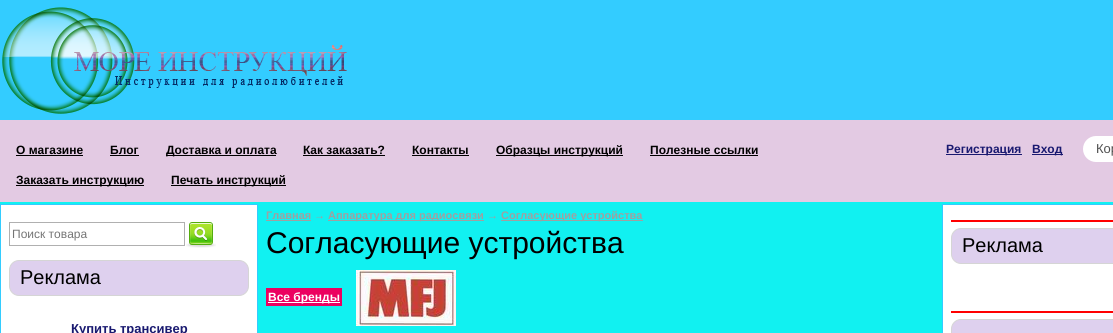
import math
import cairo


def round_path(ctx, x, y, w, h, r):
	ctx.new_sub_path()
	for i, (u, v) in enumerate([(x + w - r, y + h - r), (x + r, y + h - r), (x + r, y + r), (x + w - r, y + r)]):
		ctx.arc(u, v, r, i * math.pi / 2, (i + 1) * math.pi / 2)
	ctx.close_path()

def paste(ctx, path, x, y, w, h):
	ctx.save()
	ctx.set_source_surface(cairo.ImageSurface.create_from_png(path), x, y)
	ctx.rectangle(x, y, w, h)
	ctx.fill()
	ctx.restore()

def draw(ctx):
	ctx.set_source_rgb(0.067, 0.945, 0.945)
	ctx.paint()
	ctx.set_source_rgb(0.2, 0.8, 1)
	ctx.rectangle(0, 0, 1113, 120)
	ctx.fill()
	paste(ctx, 'media/1.png', 2, 7, 345, 107)
	ctx.set_source_rgb(0.89, 0.792, 0.89)
	ctx.rectangle(0, 120, 1113, 82)
	ctx.fill()
	ctx.select_font_face('Liberation Sans', cairo.FONT_SLANT_NORMAL, cairo.FONT_WEIGHT_BOLD)
	ctx.set_font_size(12)
	ctx.set_source_rgb(0, 0, 0)
	ctx.move_to(16, 154)
	ctx.show_text('О магазине')
	ctx.rectangle(16, 155, 67, 1)
	ctx.fill()
	ctx.move_to(110, 154)
	ctx.show_text('Блог')
	ctx.rectangle(110, 155, 29, 1)
	ctx.fill()
	ctx.rectangle(166, 155, 110, 1)
	ctx.fill()
	ctx.move_to(166, 154)
	ctx.show_text('Доставка и оплата')
	ctx.move_to(303, 154)
	ctx.show_text('Как заказать?')
	ctx.rectangle(303, 155, 82, 1)
	ctx.fill()
	ctx.move_to(412, 154)
	ctx.show_text('Контакты')
	ctx.rectangle(412, 155, 57, 1)
	ctx.fill()
	ctx.rectangle(496, 155, 127, 1)
	ctx.fill()
	ctx.move_to(496, 154)
	ctx.show_text('Образцы инструкций')
	ctx.move_to(650, 154)
	ctx.show_text('Полезные ссылки')
	ctx.rectangle(650, 155, 108, 1)
	ctx.fill()
	ctx.rectangle(16, 185, 128, 1)
	ctx.fill()
	ctx.move_to(16, 184)
	ctx.show_text('Заказать инструкцию')
	ctx.rectangle(171, 185, 115, 1)
	ctx.fill()
	ctx.move_to(171, 184)
	ctx.show_text('Печать инструкций')
	ctx.set_source_rgb(0.098, 0.098, 0.439)
	ctx.rectangle(946, 154, 76, 1)
	ctx.fill()
	ctx.move_to(946, 153)
	ctx.show_text('Регистрация')
	ctx.rectangle(1032, 154, 31, 1)
	ctx.fill()
	ctx.move_to(1032, 153)
	ctx.show_text('Вход')
	ctx.set_source_rgb(1, 1, 1)
	round_path(ctx, 1083, 136, 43, 26, 13)
	ctx.fill()
	ctx.select_font_face('Liberation Sans')
	ctx.set_font_size(13)
	ctx.set_source_rgb(0.314, 0.314, 0.314)
	ctx.move_to(1096, 153)
	ctx.show_text('Кор')
	ctx.set_source_rgb(1, 1, 1)
	ctx.rectangle(0.5, 204.5, 257, 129)
	ctx.fill_preserve()
	ctx.set_source_rgb(0.2, 0.8, 1)
	ctx.set_line_width(1)
	ctx.stroke()
	ctx.rectangle(9.5, 222.5, 175, 23)
	ctx.set_source_rgb(0.69, 0.69, 0.69)
	ctx.stroke()
	ctx.set_font_size(12)
	ctx.set_source_rgb(0.459, 0.459, 0.459)
	ctx.move_to(12, 238)
	ctx.show_text('Поиск товара')
	paste(ctx, 'media/2.png', 186, 222, 30, 26)
	ctx.set_source_rgb(0.871, 0.816, 0.933)
	round_path(ctx, 9.5, 260.5, 239, 35, 9.5)
	ctx.fill_preserve()
	ctx.set_source_rgb(0.835, 0.835, 0.835)
	ctx.stroke()
	ctx.set_font_size(20)
	ctx.set_source_rgb(0, 0, 0)
	ctx.move_to(20, 284)
	ctx.show_text('Реклама')
	ctx.select_font_face('Liberation Sans', cairo.FONT_SLANT_NORMAL, cairo.FONT_WEIGHT_BOLD)
	ctx.set_font_size(13)
	ctx.set_source_rgb(0.098, 0.098, 0.439)
	ctx.move_to(71, 333)
	ctx.show_text('Купить трансивер')
	ctx.set_font_size(11)
	ctx.set_source_rgb(0.627, 0.627, 0.627)
	ctx.move_to(266, 219)
	ctx.show_text('Главная')
	ctx.rectangle(266, 220, 45, 1)
	ctx.fill()
	ctx.select_font_face('Liberation Sans')
	ctx.move_to(314, 219)
	ctx.show_text('→')
	ctx.rectangle(328, 220, 156, 1)
	ctx.fill()
	ctx.select_font_face('Liberation Sans', cairo.FONT_SLANT_NORMAL, cairo.FONT_WEIGHT_BOLD)
	ctx.move_to(328, 219)
	ctx.show_text('Аппаратура для радиосвязи')
	ctx.select_font_face('Liberation Sans')
	ctx.move_to(487, 219)
	ctx.show_text('→')
	ctx.rectangle(501, 220, 142, 1)
	ctx.fill()
	ctx.select_font_face('Liberation Sans', cairo.FONT_SLANT_NORMAL, cairo.FONT_WEIGHT_BOLD)
	ctx.move_to(501, 219)
	ctx.show_text('Согласующие устройства')
	ctx.select_font_face('Liberation Sans')
	ctx.set_font_size(30)
	ctx.set_source_rgb(0, 0, 0)
	ctx.move_to(266, 253)
	ctx.show_text('Согласующие устройства')
	ctx.set_source_rgb(0.925, 0, 0.376)
	ctx.rectangle(266, 288, 76, 18)
	ctx.fill()
	ctx.set_source_rgb(1, 0.996, 1)
	ctx.rectangle(268, 302, 72, 1)
	ctx.fill()
	ctx.select_font_face('Liberation Sans', cairo.FONT_SLANT_NORMAL, cairo.FONT_WEIGHT_BOLD)
	ctx.set_font_size(12)
	ctx.move_to(268, 301)
	ctx.show_text('Все бренды')
	paste(ctx, 'media/3.png', 356, 270, 100, 56)
	ctx.set_source_rgb(1, 1, 1)
	ctx.rectangle(942.5, 204.5, 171, 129)
	ctx.fill_preserve()
	ctx.set_source_rgb(0.2, 0.8, 1)
	ctx.stroke()
	ctx.set_source_rgb(1, 0, 0)
	ctx.rectangle(951, 220, 162, 2)
	ctx.fill()
	ctx.set_source_rgb(0.871, 0.816, 0.933)
	round_path(ctx, 951.5, 228.5, 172, 35, 9.5)
	ctx.fill_preserve()
	ctx.set_source_rgb(0.835, 0.835, 0.835)
	ctx.stroke()
	ctx.select_font_face('Liberation Sans')
	ctx.set_font_size(20)
	ctx.set_source_rgb(0, 0, 0)
	ctx.move_to(962, 252)
	ctx.show_text('Реклама')
	ctx.set_source_rgb(1, 0, 0)
	ctx.rectangle(951, 311, 162, 2)
	ctx.fill()
	ctx.set_source_rgb(0.871, 0.816, 0.933)
	round_path(ctx, 951.5, 319.5, 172, 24, 9.5)
	ctx.fill_preserve()
	ctx.set_source_rgb(0.835, 0.835, 0.835)
	ctx.stroke()


surface = cairo.ImageSurface(cairo.FORMAT_RGB24, 1113, 333)
ctx = cairo.Context(surface)
options = cairo.FontOptions()
options.set_hint_metrics(cairo.HINT_METRICS_OFF)
options.set_hint_style(cairo.HINT_STYLE_NONE)
ctx.set_font_options(options)
ctx.set_miter_limit(4)
draw(ctx)
surface.write_to_png('image.png')
